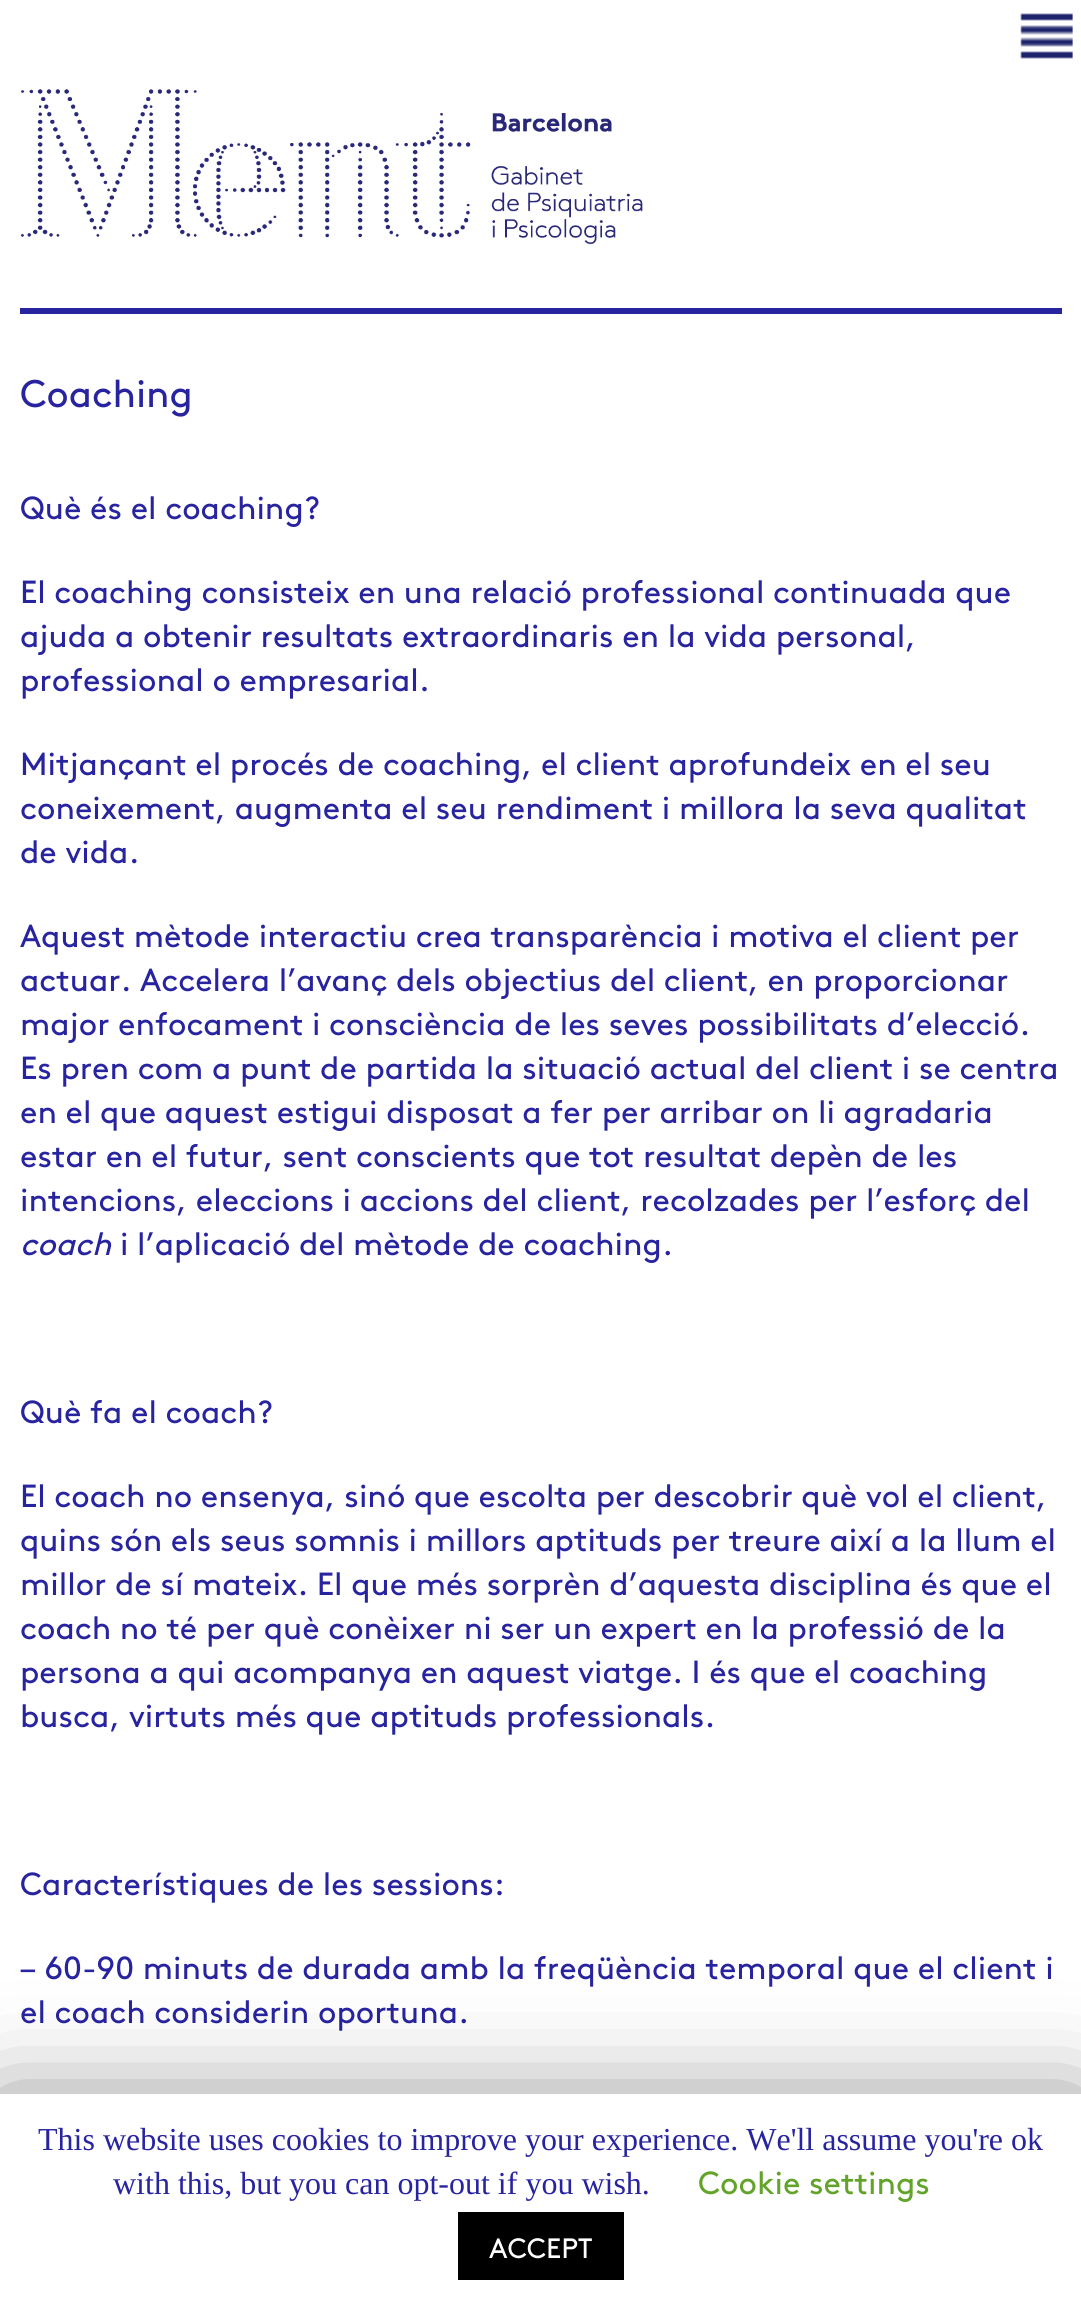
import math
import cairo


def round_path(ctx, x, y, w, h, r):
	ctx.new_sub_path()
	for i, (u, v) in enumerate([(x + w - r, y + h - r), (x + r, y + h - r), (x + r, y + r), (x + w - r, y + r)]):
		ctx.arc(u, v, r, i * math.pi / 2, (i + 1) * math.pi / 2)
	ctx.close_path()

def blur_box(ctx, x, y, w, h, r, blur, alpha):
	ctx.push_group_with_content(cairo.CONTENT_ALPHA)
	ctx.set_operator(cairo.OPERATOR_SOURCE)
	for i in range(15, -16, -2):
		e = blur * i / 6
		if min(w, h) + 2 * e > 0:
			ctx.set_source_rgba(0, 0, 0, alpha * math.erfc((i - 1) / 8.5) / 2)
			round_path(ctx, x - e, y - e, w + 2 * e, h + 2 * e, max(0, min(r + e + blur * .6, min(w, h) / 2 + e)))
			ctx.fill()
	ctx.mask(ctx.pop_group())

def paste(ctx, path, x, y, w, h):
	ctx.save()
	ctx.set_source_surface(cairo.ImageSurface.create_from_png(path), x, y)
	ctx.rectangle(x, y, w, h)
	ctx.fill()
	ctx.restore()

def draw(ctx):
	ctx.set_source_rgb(1, 1, 1)
	ctx.paint()
	paste(ctx, 'media/1.png', 1020, 13, 53, 46)
	paste(ctx, 'media/2.png', 20, 89, 623, 156)
	ctx.set_source_rgb(0.157, 0.141, 0.627)
	ctx.rectangle(20, 308, 1042, 6)
	ctx.fill()
	ctx.select_font_face('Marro')
	ctx.set_font_size(38.5)
	ctx.move_to(20, 407)
	ctx.show_text('Coaching')
	ctx.set_font_size(32)
	for x, y, s in [
		(20, 519, 'Què és el coaching?'),
		(20, 603, 'El coaching consisteix en una relació professional continuada que'),
		(20, 647, 'ajuda a obtenir resultats extraordinaris en la vida personal,'),
		(20, 691, 'professional o empresarial.'),
		(20, 775, 'Mitjançant el procés de coaching, el client aprofundeix en el seu'),
		(20, 819, 'coneixement, augmenta el seu rendiment i millora la seva qualitat'),
		(20, 863, 'de vida.'),
		(20, 947, 'Aquest mètode interactiu crea transparència i motiva el client per'),
		(20, 991, 'actuar. Accelera l’avanç dels objectius del client, en proporcionar'),
		(20, 1035, 'major enfocament i consciència de les seves possibilitats d’elecció.'),
		(20, 1079, 'Es pren com a punt de partida la situació actual del client i se centra'),
		(20, 1123, 'en el que aquest estigui disposat a fer per arribar on li agradaria'),
		(20, 1167, 'estar en el futur, sent conscients que tot resultat depèn de les'),
		(20, 1211, 'intencions, eleccions i accions del client, recolzades per l’esforç del'),
	]:
		ctx.move_to(x, y)
		ctx.show_text(s)
	ctx.select_font_face('Marro', cairo.FONT_SLANT_ITALIC)
	ctx.move_to(20, 1255)
	ctx.show_text('coach')
	ctx.select_font_face('Marro')
	for x, y, s in [
		(120, 1255, 'i l’aplicació del mètode de coaching.'),
		(20, 1423, 'Què fa el coach?'),
		(20, 1507, 'El coach no ensenya, sinó que escolta per descobrir què vol el client,'),
		(20, 1551, 'quins són els seus somnis i millors aptituds per treure així a la llum el'),
		(20, 1595, 'millor de sí mateix. El que més sorprèn d’aquesta disciplina és que el'),
		(20, 1639, 'coach no té per què conèixer ni ser un expert en la professió de la'),
		(20, 1683, 'persona a qui acompanya en aquest viatge. I és que el coaching'),
		(20, 1727, 'busca, virtuts més que aptituds professionals.'),
		(20, 1895, 'Característiques de les sessions:'),
		(20, 1979, '– 60-90 minuts de durada amb la freqüència temporal que el client i'),
		(20, 2023, 'el coach considerin oportuna.'),
	]:
		ctx.move_to(x, y)
		ctx.show_text(s)
	ctx.set_source_rgb(0, 0, 0)
	blur_box(ctx, 0, 2104, 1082, 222, 0, 50, 0.5)
	ctx.set_source_rgb(1, 1, 1)
	ctx.rectangle(0, 2094, 1081, 221)
	ctx.fill()
	ctx.select_font_face('Liberation Serif')
	ctx.set_source_rgb(0.157, 0.141, 0.627)
	ctx.move_to(38, 2150)
	ctx.show_text('This website uses cookies to improve your experience. We\'ll assume you\'re ok')
	ctx.move_to(113, 2194)
	ctx.show_text('with this, but you can opt-out if you wish.')
	ctx.select_font_face('Marro')
	ctx.set_source_rgb(0.384, 0.639, 0.161)
	ctx.move_to(698, 2194)
	ctx.show_text('Cookie settings')
	ctx.set_source_rgb(0, 0, 0)
	ctx.rectangle(458, 2212, 166, 68)
	ctx.fill()
	ctx.set_font_size(28)
	ctx.set_source_rgb(1, 1, 1)
	ctx.move_to(489, 2258)
	ctx.show_text('ACCEPT')


surface = cairo.ImageSurface(cairo.FORMAT_RGB24, 1081, 2315)
ctx = cairo.Context(surface)
options = cairo.FontOptions()
options.set_hint_metrics(cairo.HINT_METRICS_OFF)
options.set_hint_style(cairo.HINT_STYLE_NONE)
ctx.set_font_options(options)
ctx.set_miter_limit(4)
draw(ctx)
surface.write_to_png('image.png')
